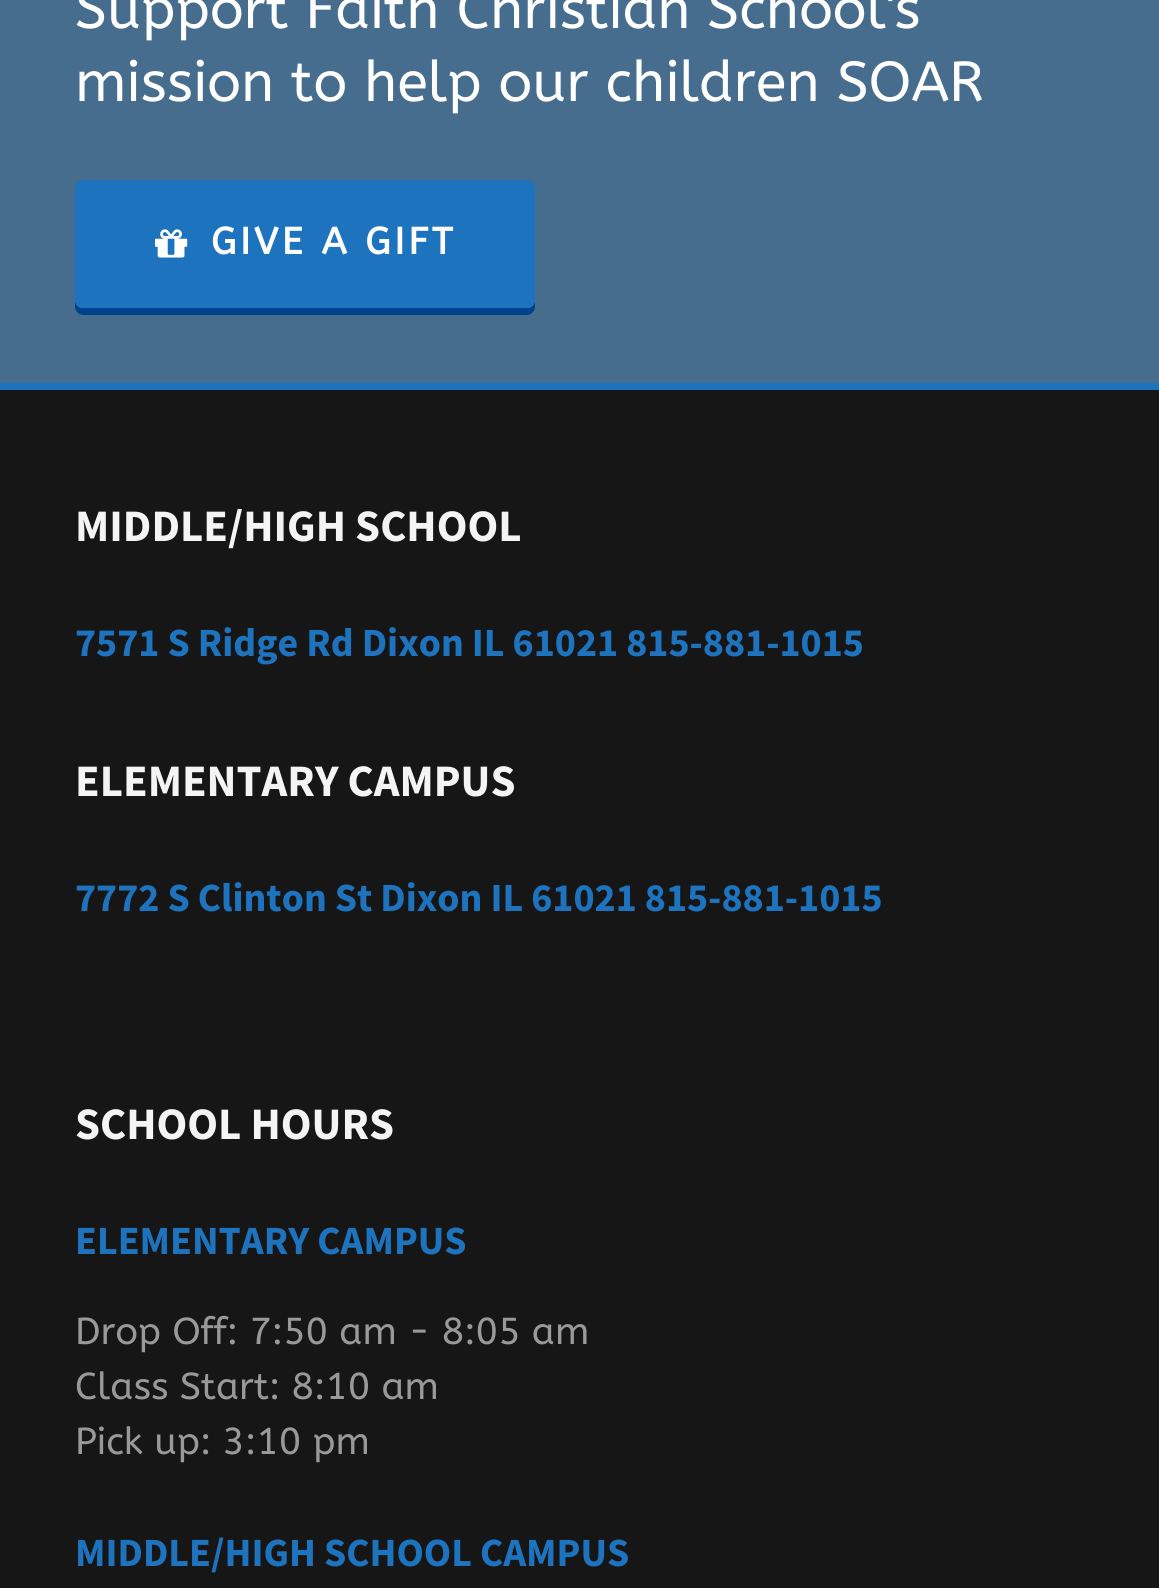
import math
import cairo


def write_spaced(ctx, x, y, s, letter, word):
	ctx.move_to(x, y)
	for ch in s:
		ctx.show_text(ch)
		ctx.rel_move_to(letter + word * (ch == ' '), 0)

def round_path(ctx, x, y, w, h, r):
	ctx.new_sub_path()
	for i, (u, v) in enumerate([(x + w - r, y + h - r), (x + r, y + h - r), (x + r, y + r), (x + w - r, y + r)]):
		ctx.arc(u, v, r, i * math.pi / 2, (i + 1) * math.pi / 2)
	ctx.close_path()

def paste(ctx, path, x, y, w, h):
	ctx.save()
	ctx.set_source_surface(cairo.ImageSurface.create_from_png(path), x, y)
	ctx.rectangle(x, y, w, h)
	ctx.fill()
	ctx.restore()

def draw(ctx):
	ctx.set_source_rgb(0.278, 0.427, 0.557)
	ctx.paint()
	ctx.set_source_rgb(0.118, 0.451, 0.745)
	ctx.rectangle(0, 383, 1159, 7)
	ctx.fill()
	ctx.select_font_face('ABeeZee')
	ctx.set_font_size(56.25)
	ctx.set_source_rgb(1, 1, 1)
	ctx.move_to(75, 28)
	ctx.show_text('Support Faith Christian School\'s')
	ctx.move_to(75, 101)
	ctx.show_text('mission to help our children SOAR')
	ctx.set_source_rgb(0, 0.255, 0.549)
	ctx.new_path()
	ctx.move_to(75, 300)
	ctx.line_to(75, 307)
	ctx.curve_to(75, 311, 79, 315, 83, 315)
	ctx.line_to(527, 315)
	ctx.curve_to(531, 315, 535, 311, 535, 307)
	ctx.line_to(535, 300)
	ctx.curve_to(535, 304, 532, 308, 528, 308)
	ctx.line_to(82, 308)
	ctx.curve_to(78, 308, 75, 304, 75, 300)
	ctx.close_path()
	ctx.fill()
	ctx.set_source_rgb(0.118, 0.451, 0.745)
	round_path(ctx, 75, 180, 460, 128, 8)
	ctx.fill()
	paste(ctx, 'media/1.png', 155, 229, 33, 29)
	ctx.select_font_face('ABeeZee', cairo.FONT_SLANT_NORMAL, cairo.FONT_WEIGHT_BOLD)
	ctx.set_font_size(37.5)
	ctx.set_source_rgb(1, 1, 1)
	write_spaced(ctx, 211, 254, 'GIVE A GIFT', 3.75, 0)
	ctx.set_source_rgb(0.086, 0.086, 0.086)
	ctx.rectangle(0, 390, 1159, 1198)
	ctx.fill()
	ctx.select_font_face('Source Sans Pro', cairo.FONT_SLANT_NORMAL, cairo.FONT_WEIGHT_BOLD)
	ctx.set_font_size(45)
	ctx.set_source_rgb(0.957, 0.957, 0.957)
	ctx.move_to(75, 541)
	ctx.show_text('MIDDLE/HIGH SCHOOL')
	ctx.set_font_size(40)
	ctx.set_source_rgb(0.118, 0.451, 0.745)
	ctx.move_to(75, 656)
	ctx.show_text('7571 S Ridge Rd Dixon IL 61021 815-881-1015')
	ctx.set_font_size(45)
	ctx.set_source_rgb(0.957, 0.957, 0.957)
	ctx.move_to(75, 796)
	ctx.show_text('ELEMENTARY CAMPUS')
	ctx.set_font_size(40)
	ctx.set_source_rgb(0.118, 0.451, 0.745)
	ctx.move_to(75, 911)
	ctx.show_text('7772 S Clinton St Dixon IL 61021 815-881-1015')
	ctx.set_font_size(45)
	ctx.set_source_rgb(0.957, 0.957, 0.957)
	ctx.move_to(75, 1139)
	ctx.show_text('SCHOOL HOURS')
	ctx.set_font_size(40)
	ctx.set_source_rgb(0.118, 0.451, 0.745)
	ctx.move_to(75, 1254)
	ctx.show_text('ELEMENTARY CAMPUS')
	ctx.select_font_face('ABeeZee')
	ctx.set_font_size(37.5)
	ctx.set_source_rgb(0.6, 0.6, 0.6)
	for x, y, s in [
		(75, 1344, 'Drop Off: 7:50 am - 8:05 am'),
		(75, 1399, 'Class Start: 8:10 am'),
		(75, 1454, 'Pick up: 3:10 pm'),
	]:
		ctx.move_to(x, y)
		ctx.show_text(s)
	ctx.select_font_face('Source Sans Pro', cairo.FONT_SLANT_NORMAL, cairo.FONT_WEIGHT_BOLD)
	ctx.set_font_size(40)
	ctx.set_source_rgb(0.118, 0.451, 0.745)
	ctx.move_to(75, 1566)
	ctx.show_text('MIDDLE/HIGH SCHOOL CAMPUS')


surface = cairo.ImageSurface(cairo.FORMAT_RGB24, 1159, 1588)
ctx = cairo.Context(surface)
options = cairo.FontOptions()
options.set_hint_metrics(cairo.HINT_METRICS_OFF)
options.set_hint_style(cairo.HINT_STYLE_NONE)
ctx.set_font_options(options)
ctx.set_miter_limit(4)
draw(ctx)
surface.write_to_png('image.png')
